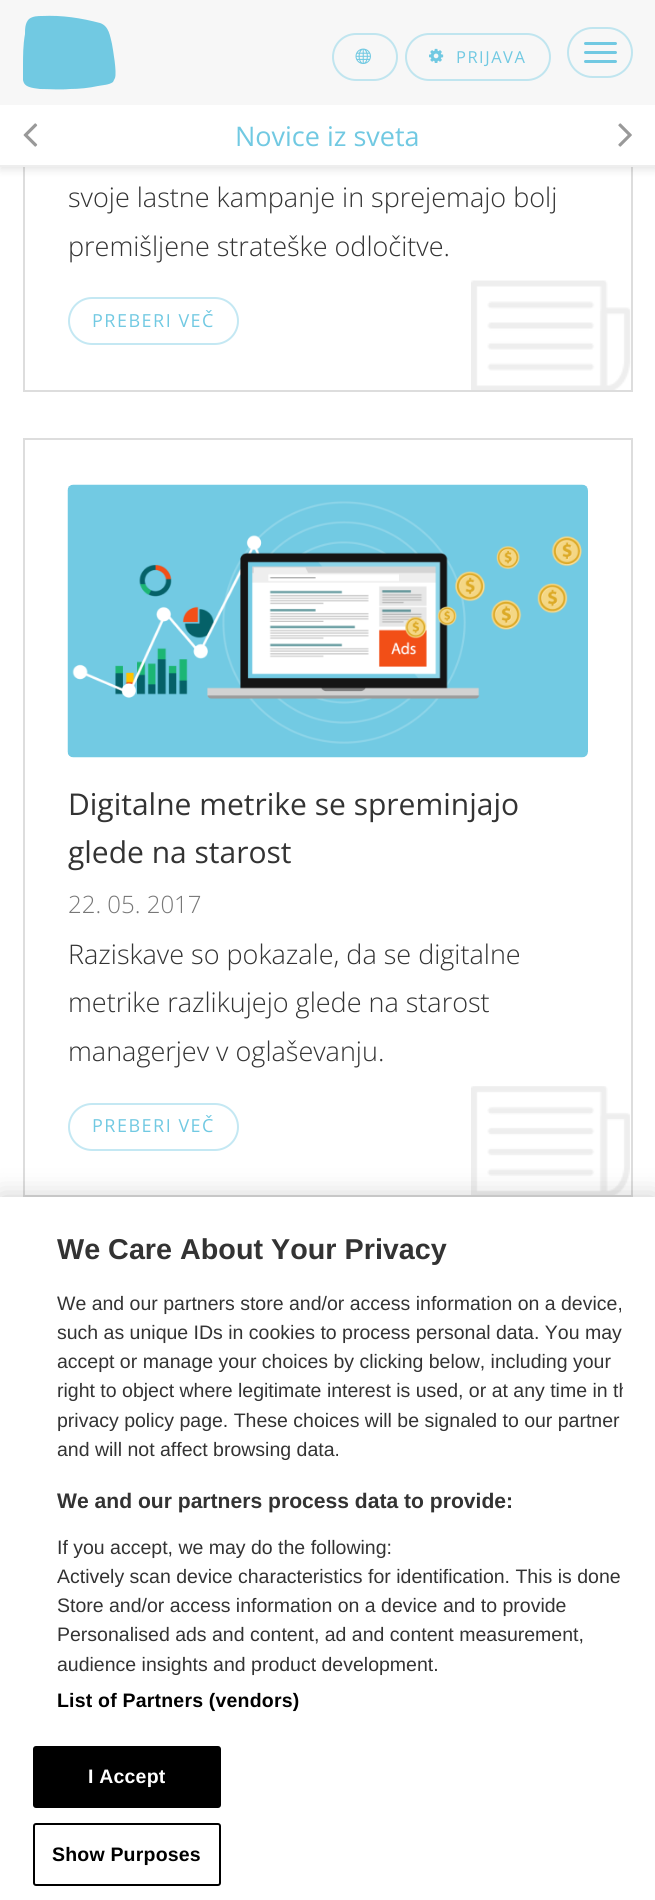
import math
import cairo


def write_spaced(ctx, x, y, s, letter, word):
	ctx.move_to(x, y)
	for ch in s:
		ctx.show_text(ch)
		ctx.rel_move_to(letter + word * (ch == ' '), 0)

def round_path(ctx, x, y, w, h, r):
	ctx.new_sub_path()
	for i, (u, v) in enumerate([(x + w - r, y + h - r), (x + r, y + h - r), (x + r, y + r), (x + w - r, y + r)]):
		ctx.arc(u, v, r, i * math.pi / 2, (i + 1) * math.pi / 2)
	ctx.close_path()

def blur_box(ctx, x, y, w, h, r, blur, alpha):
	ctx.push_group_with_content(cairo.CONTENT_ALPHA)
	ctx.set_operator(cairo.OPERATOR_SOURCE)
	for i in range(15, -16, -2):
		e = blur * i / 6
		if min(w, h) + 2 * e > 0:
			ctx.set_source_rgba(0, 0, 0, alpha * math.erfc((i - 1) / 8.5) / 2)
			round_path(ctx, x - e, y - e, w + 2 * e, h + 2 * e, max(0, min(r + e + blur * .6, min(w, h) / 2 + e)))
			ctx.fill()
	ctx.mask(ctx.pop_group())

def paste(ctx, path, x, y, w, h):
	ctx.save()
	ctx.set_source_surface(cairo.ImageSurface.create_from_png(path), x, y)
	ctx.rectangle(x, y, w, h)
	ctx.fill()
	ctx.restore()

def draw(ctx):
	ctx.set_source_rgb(1, 1, 1)
	ctx.paint()
	paste(ctx, 'media/5.png', 471, 280, 160, 110)
	ctx.rectangle(24, -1, 608, 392)
	ctx.set_source_rgb(0.867, 0.867, 0.867)
	ctx.stroke()
	ctx.set_source_rgb(0, 0, 0)
	blur_box(ctx, 0, 108, 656, 62, 0, 4, 0.1)
	ctx.set_source_rgb(0.965, 0.965, 0.965)
	ctx.rectangle(0, 0, 655, 105)
	ctx.fill()
	ctx.save()
	ctx.rectangle(23, 15, 93, 75)
	ctx.clip()
	ctx.set_source_rgb(0.443, 0.788, 0.886)
	ctx.set_fill_rule(cairo.FILL_RULE_EVEN_ODD)
	ctx.new_path()
	ctx.move_to(100, 23)
	ctx.curve_to(109, 26, 110, 36, 112, 44)
	ctx.curve_to(113, 50, 117, 72, 115, 78)
	ctx.line_to(113, 82)
	ctx.curve_to(109, 85, 103, 85, 98, 86)
	ctx.curve_to(89, 88, 79, 89, 70, 89)
	ctx.curve_to(60, 90, 50, 89, 40, 89)
	ctx.curve_to(22, 87, 22, 84, 23, 67)
	ctx.curve_to(23, 56, 23, 45, 25, 34)
	ctx.curve_to(25, 29, 25, 23, 29, 19)
	ctx.curve_to(33, 16, 38, 16, 42, 16)
	ctx.curve_to(62, 15, 81, 18, 100, 23)
	ctx.close_path()
	ctx.fill()
	ctx.restore()
	round_path(ctx, 333, 34, 64, 46, 23)
	ctx.set_source_rgb(0.753, 0.898, 0.937)
	ctx.stroke()
	paste(ctx, 'media/1.png', 355, 48, 16, 16)
	round_path(ctx, 406, 34, 144, 46, 23)
	ctx.stroke()
	paste(ctx, 'media/2.png', 429, 48, 15, 15)
	ctx.select_font_face('Open Sans')
	ctx.set_font_size(16.5)
	ctx.set_source_rgb(0.443, 0.788, 0.886)
	write_spaced(ctx, 456, 63, 'PRIJAVA', 1.5, 0)
	round_path(ctx, 568, 28, 64, 49, 24.5)
	ctx.set_source_rgb(0.753, 0.898, 0.937)
	ctx.stroke()
	ctx.set_source_rgb(0.443, 0.788, 0.886)
	round_path(ctx, 584, 42, 33, 3, 1.5)
	ctx.fill()
	round_path(ctx, 584, 51, 33, 3, 1.5)
	ctx.fill()
	round_path(ctx, 584, 60, 33, 3, 1.5)
	ctx.fill()
	ctx.set_source_rgb(1, 1, 1)
	ctx.rectangle(0, 105, 655, 60)
	ctx.fill()
	ctx.set_source_rgb(0.933, 0.933, 0.933)
	ctx.rectangle(0, 165, 655, 2)
	ctx.fill()
	paste(ctx, 'media/3.png', 23, 123, 15, 24)
	ctx.set_font_size(27)
	ctx.set_source_rgb(0.443, 0.788, 0.886)
	ctx.move_to(235, 146)
	ctx.show_text('Novice iz sveta')
	paste(ctx, 'media/4.png', 618, 123, 14, 24)
	ctx.select_font_face('Open Sans Light')
	ctx.set_source_rgb(0.2, 0.2, 0.2)
	ctx.move_to(68, 207)
	ctx.show_text('svoje lastne kampanje in sprejemajo bolj')
	ctx.move_to(68, 256)
	ctx.show_text('premišljene strateške odločitve.')
	round_path(ctx, 69, 298, 169, 46, 23)
	ctx.set_source_rgb(0.769, 0.91, 0.953)
	ctx.stroke()
	ctx.select_font_face('Open Sans')
	ctx.set_font_size(18)
	ctx.set_source_rgb(0.443, 0.788, 0.886)
	write_spaced(ctx, 92, 327, 'PREBERI VEČ', 1.5, 0)
	paste(ctx, 'media/6.png', 471, 1086, 159, 109)
	ctx.rectangle(24, 439, 608, 757)
	ctx.set_source_rgb(0.867, 0.867, 0.867)
	ctx.stroke()
	paste(ctx, 'media/7.png', 67, 484, 521, 274)
	ctx.set_font_size(30)
	ctx.set_source_rgb(0.2, 0.2, 0.2)
	ctx.move_to(68, 815)
	ctx.show_text('Digitalne metrike se spreminjajo')
	ctx.move_to(68, 863)
	ctx.show_text('glede na starost')
	ctx.select_font_face('Open Sans Light')
	ctx.set_font_size(24)
	ctx.set_source_rgb(0.467, 0.467, 0.467)
	ctx.move_to(68, 913)
	ctx.show_text('22. 05. 2017')
	ctx.set_font_size(27)
	ctx.set_source_rgb(0.2, 0.2, 0.2)
	for x, y, s in [
		(68, 964, 'Raziskave so pokazale, da se digitalne'),
		(68, 1012, 'metrike razlikujejo glede na starost'),
		(68, 1061, 'managerjev v oglaševanju.'),
	]:
		ctx.move_to(x, y)
		ctx.show_text(s)
	round_path(ctx, 69, 1104, 169, 46, 23)
	ctx.set_source_rgb(0.769, 0.91, 0.953)
	ctx.stroke()
	ctx.select_font_face('Open Sans')
	ctx.set_font_size(18)
	ctx.set_source_rgb(0.443, 0.788, 0.886)
	write_spaced(ctx, 92, 1132, 'PREBERI VEČ', 1.5, 0)
	ctx.set_source_rgb(0, 0, 0)
	blur_box(ctx, 0, 1197, 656, 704, 0, 13.5, 0.2)
	ctx.set_source_rgb(1, 1, 1)
	ctx.rectangle(0, 1197, 655, 703)
	ctx.fill()
	ctx.select_font_face('Liberation Sans', cairo.FONT_SLANT_NORMAL, cairo.FONT_WEIGHT_BOLD)
	ctx.set_font_size(28.75)
	ctx.set_source_rgb(0.2, 0.2, 0.2)
	ctx.move_to(57, 1259)
	ctx.show_text('We Care About Your Privacy')
	ctx.select_font_face('Liberation Sans')
	ctx.set_font_size(19.5)
	for x, y, s in [
		(57, 1310, 'We and our partners store and/or access information on a device,'),
		(57, 1339, 'such as unique IDs in cookies to process personal data. You may'),
		(57, 1368, 'accept or manage your choices by clicking below, including your'),
	]:
		ctx.move_to(x, y)
		ctx.show_text(s)
	ctx.save()
	ctx.rectangle(57, 1227, 566, 504)
	ctx.clip()
	ctx.move_to(57, 1397)
	ctx.show_text('right to object where legitimate interest is used, or at any time in th')
	ctx.restore()
	ctx.move_to(57, 1427)
	ctx.show_text('privacy policy page. These choices will be signaled to our partner')
	ctx.move_to(57, 1456)
	ctx.show_text('and will not affect browsing data.')
	ctx.select_font_face('Liberation Sans', cairo.FONT_SLANT_NORMAL, cairo.FONT_WEIGHT_BOLD)
	ctx.set_font_size(21.1)
	ctx.move_to(57, 1508)
	ctx.show_text('We and our partners process data to provide:')
	ctx.select_font_face('Liberation Sans')
	ctx.set_font_size(19.5)
	for x, y, s in [
		(57, 1554, 'If you accept, we may do the following:'),
		(57, 1583, 'Actively scan device characteristics for identification. This is done'),
		(57, 1612, 'Store and/or access information on a device and to provide'),
		(57, 1641, 'Personalised ads and content, ad and content measurement,'),
		(57, 1671, 'audience insights and product development.'),
	]:
		ctx.move_to(x, y)
		ctx.show_text(s)
	ctx.select_font_face('Liberation Sans', cairo.FONT_SLANT_NORMAL, cairo.FONT_WEIGHT_BOLD)
	ctx.set_source_rgb(0, 0, 0)
	write_spaced(ctx, 57, 1707, 'List of Partners (vendors)', 0.2, 0)
	round_path(ctx, 34, 1747, 186, 60, 2)
	ctx.fill_preserve()
	ctx.stroke()
	ctx.set_source_rgb(1, 1, 1)
	write_spaced(ctx, 88, 1783, 'I Accept', 0.2, 0)
	round_path(ctx, 34, 1824, 186, 61, 2)
	ctx.set_source_rgb(0, 0, 0)
	ctx.stroke()
	write_spaced(ctx, 52, 1861, 'Show Purposes', 0.2, 0)


surface = cairo.ImageSurface(cairo.FORMAT_RGB24, 655, 1900)
ctx = cairo.Context(surface)
options = cairo.FontOptions()
options.set_hint_metrics(cairo.HINT_METRICS_OFF)
options.set_hint_style(cairo.HINT_STYLE_NONE)
ctx.set_font_options(options)
ctx.set_miter_limit(4)
draw(ctx)
surface.write_to_png('image.png')
